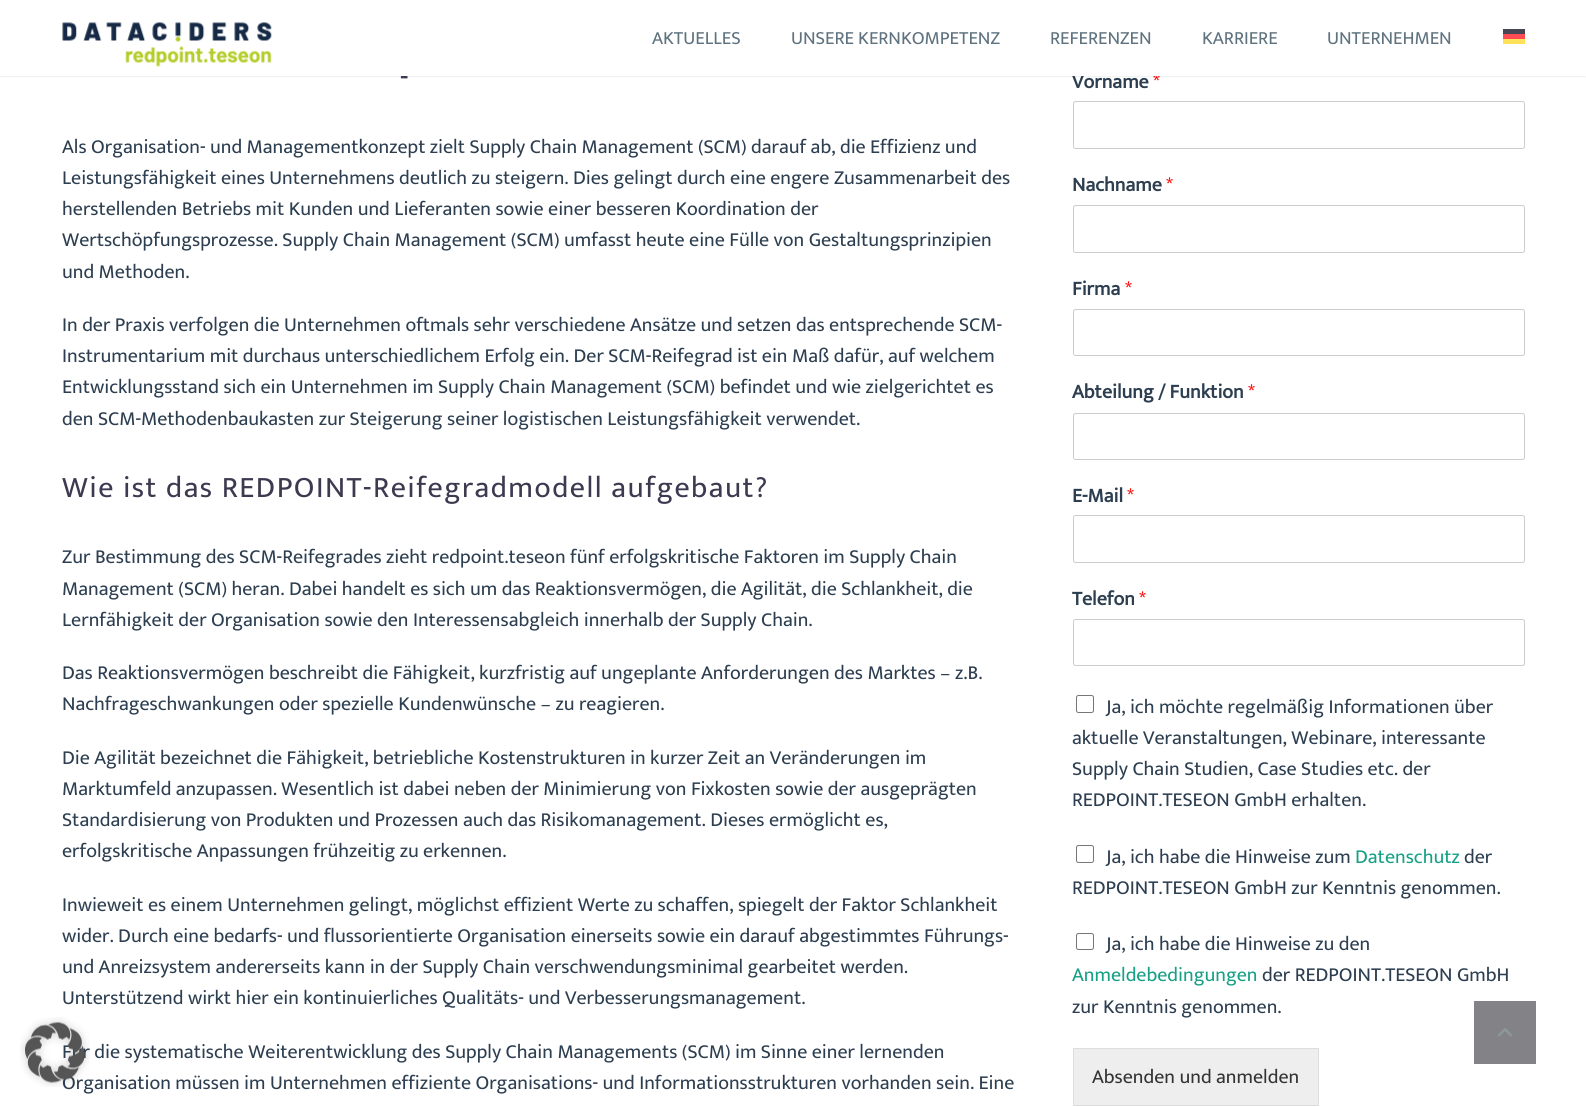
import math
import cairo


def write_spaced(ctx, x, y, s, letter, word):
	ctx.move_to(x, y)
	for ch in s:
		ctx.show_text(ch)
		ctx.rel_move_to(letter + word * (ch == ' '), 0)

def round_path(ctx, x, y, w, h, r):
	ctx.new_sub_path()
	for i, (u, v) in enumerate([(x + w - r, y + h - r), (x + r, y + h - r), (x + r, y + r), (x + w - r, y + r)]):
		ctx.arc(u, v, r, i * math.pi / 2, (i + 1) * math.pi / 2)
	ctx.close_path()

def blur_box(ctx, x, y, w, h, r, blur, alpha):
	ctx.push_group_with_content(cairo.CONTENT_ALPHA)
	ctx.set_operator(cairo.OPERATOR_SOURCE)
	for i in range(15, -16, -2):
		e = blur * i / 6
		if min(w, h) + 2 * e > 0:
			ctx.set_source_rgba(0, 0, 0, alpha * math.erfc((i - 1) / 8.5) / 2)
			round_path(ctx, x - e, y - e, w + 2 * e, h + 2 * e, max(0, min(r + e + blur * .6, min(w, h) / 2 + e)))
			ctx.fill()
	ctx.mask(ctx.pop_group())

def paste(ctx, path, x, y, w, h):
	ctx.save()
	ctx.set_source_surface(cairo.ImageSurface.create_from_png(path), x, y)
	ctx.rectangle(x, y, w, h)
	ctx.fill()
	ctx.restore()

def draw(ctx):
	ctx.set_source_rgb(1, 1, 1)
	ctx.paint()
	ctx.select_font_face('Mukta Mahee')
	ctx.set_font_size(20)
	ctx.set_source_rgb(0.173, 0.243, 0.314)
	ctx.move_to(62, 1058)
	ctx.show_text('Für die systematische Weiterentwicklung des Supply Chain Managements (SCM) im Sinne einer lernenden')
	ctx.move_to(62, 1089)
	ctx.show_text('Organisation müssen im Unternehmen effiziente Organisations- und Informationsstrukturen vorhanden sein. Eine')
	paste(ctx, 'media/1.png', 20, 1017, 70, 70)
	ctx.set_source_rgb(0.22, 0.271, 0.329)
	blur_box(ctx, 0, 0, 1586, 76, 0, 1, 0.2)
	ctx.select_font_face('Mukta Mahee', cairo.FONT_SLANT_NORMAL, cairo.FONT_WEIGHT_BOLD)
	ctx.set_source_rgb(0.173, 0.243, 0.314)
	ctx.move_to(1072, 88)
	ctx.show_text('Vorname')
	ctx.select_font_face('Mukta Mahee')
	ctx.set_source_rgb(1, 0, 0)
	ctx.move_to(1153, 88)
	ctx.show_text('*')
	ctx.set_source_rgb(1, 1, 1)
	ctx.rectangle(0, 0, 1586, 76)
	ctx.fill()
	paste(ctx, 'media/2.png', 62, 22, 210, 45)
	ctx.set_font_size(18.75)
	ctx.set_source_rgb(0.373, 0.447, 0.498)
	for x, y, s in [
		(652, 44, 'AKTUELLES'),
		(791, 44, 'UNSERE KERNKOMPETENZ'),
		(1050, 44, 'REFERENZEN'),
		(1202, 44, 'KARRIERE'),
		(1327, 44, 'UNTERNEHMEN'),
	]:
		ctx.move_to(x, y)
		ctx.show_text(s)
	ctx.set_source_rgb(0.275, 0.275, 0.333)
	ctx.rectangle(1503, 29, 22, 5)
	ctx.fill()
	ctx.set_source_rgb(1, 0.294, 0.333)
	ctx.rectangle(1503, 34, 22, 5)
	ctx.fill()
	ctx.set_source_rgb(1, 0.882, 0.353)
	ctx.rectangle(1503, 39, 22, 5)
	ctx.fill()
	ctx.set_font_size(30)
	ctx.set_source_rgb(0.235, 0.224, 0.314)
	write_spaced(ctx, 400, 86, '-', 1.5, 0)
	ctx.set_font_size(20)
	ctx.set_source_rgb(0.173, 0.243, 0.314)
	for x, y, s in [
		(62, 153, 'Als Organisation- und Managementkonzept zielt Supply Chain Management (SCM) darauf ab, die Effizienz und'),
		(62, 184, 'Leistungsfähigkeit eines Unternehmens deutlich zu steigern. Dies gelingt durch eine engere Zusammenarbeit des'),
		(62, 215, 'herstellenden Betriebs mit Kunden und Lieferanten sowie einer besseren Koordination der'),
		(62, 246, 'Wertschöpfungsprozesse. Supply Chain Management (SCM) umfasst heute eine Fülle von Gestaltungsprinzipien'),
		(62, 278, 'und Methoden.'),
		(62, 331, 'In der Praxis verfolgen die Unternehmen oftmals sehr verschiedene Ansätze und setzen das entsprechende SCM-'),
		(62, 362, 'Instrumentarium mit durchaus unterschiedlichem Erfolg ein. Der SCM-Reifegrad ist ein Maß dafür, auf welchem'),
		(62, 393, 'Entwicklungsstand sich ein Unternehmen im Supply Chain Management (SCM) befindet und wie zielgerichtet es'),
		(62, 425, 'den SCM-Methodenbaukasten zur Steigerung seiner logistischen Leistungsfähigkeit verwendet.'),
	]:
		ctx.move_to(x, y)
		ctx.show_text(s)
	ctx.set_font_size(30)
	ctx.set_source_rgb(0.235, 0.224, 0.314)
	write_spaced(ctx, 62, 497, 'Wie ist das REDPOINT-Reifegradmodell aufgebaut?', 1.5, 0)
	ctx.set_font_size(20)
	ctx.set_source_rgb(0.173, 0.243, 0.314)
	for x, y, s in [
		(62, 563, 'Zur Bestimmung des SCM-Reifegrades zieht redpoint.teseon fünf erfolgskritische Faktoren im Supply Chain'),
		(62, 595, 'Management (SCM) heran. Dabei handelt es sich um das Reaktionsvermögen, die Agilität, die Schlankheit, die'),
		(62, 626, 'Lernfähigkeit der Organisation sowie den Interessensabgleich innerhalb der Supply Chain.'),
		(62, 679, 'Das Reaktionsvermögen beschreibt die Fähigkeit, kurzfristig auf ungeplante Anforderungen des Marktes – z.B.'),
		(62, 710, 'Nachfrageschwankungen oder spezielle Kundenwünsche – zu reagieren.'),
		(62, 764, 'Die Agilität bezeichnet die Fähigkeit, betriebliche Kostenstrukturen in kurzer Zeit an Veränderungen im'),
		(62, 795, 'Marktumfeld anzupassen. Wesentlich ist dabei neben der Minimierung von Fixkosten sowie der ausgeprägten'),
		(62, 826, 'Standardisierung von Produkten und Prozessen auch das Risikomanagement. Dieses ermöglicht es,'),
		(62, 857, 'erfolgskritische Anpassungen frühzeitig zu erkennen.'),
		(62, 911, 'Inwieweit es einem Unternehmen gelingt, möglichst effizient Werte zu schaffen, spiegelt der Faktor Schlankheit'),
		(62, 942, 'wider. Durch eine bedarfs- und flussorientierte Organisation einerseits sowie ein darauf abgestimmtes Führungs-'),
		(62, 973, 'und Anreizsystem andererseits kann in der Supply Chain verschwendungsminimal gearbeitet werden.'),
		(62, 1004, 'Unterstützend wirkt hier ein kontinuierliches Qualitäts- und Verbesserungsmanagement.'),
	]:
		ctx.move_to(x, y)
		ctx.show_text(s)
	round_path(ctx, 1073.5, 101.5, 451, 47, 2)
	ctx.set_source_rgb(0.8, 0.8, 0.8)
	ctx.set_line_width(1)
	ctx.stroke()
	ctx.select_font_face('Mukta Mahee', cairo.FONT_SLANT_NORMAL, cairo.FONT_WEIGHT_BOLD)
	ctx.set_source_rgb(0.173, 0.243, 0.314)
	ctx.move_to(1072, 191)
	ctx.show_text('Nachname')
	ctx.select_font_face('Mukta Mahee')
	ctx.set_source_rgb(1, 0, 0)
	ctx.move_to(1166, 191)
	ctx.show_text('*')
	round_path(ctx, 1073.5, 205.5, 451, 47, 2)
	ctx.set_source_rgb(0.8, 0.8, 0.8)
	ctx.stroke()
	ctx.select_font_face('Mukta Mahee', cairo.FONT_SLANT_NORMAL, cairo.FONT_WEIGHT_BOLD)
	ctx.set_source_rgb(0.173, 0.243, 0.314)
	ctx.move_to(1072, 295)
	ctx.show_text('Firma')
	ctx.select_font_face('Mukta Mahee')
	ctx.set_source_rgb(1, 0, 0)
	ctx.move_to(1125, 295)
	ctx.show_text('*')
	round_path(ctx, 1073.5, 309.5, 451, 46, 2)
	ctx.set_source_rgb(0.8, 0.8, 0.8)
	ctx.stroke()
	ctx.select_font_face('Mukta Mahee', cairo.FONT_SLANT_NORMAL, cairo.FONT_WEIGHT_BOLD)
	ctx.set_source_rgb(0.173, 0.243, 0.314)
	ctx.move_to(1072, 398)
	ctx.show_text('Abteilung / Funktion')
	ctx.select_font_face('Mukta Mahee')
	ctx.set_source_rgb(1, 0, 0)
	ctx.move_to(1248, 398)
	ctx.show_text('*')
	round_path(ctx, 1073.5, 413.5, 451, 46, 2)
	ctx.set_source_rgb(0.8, 0.8, 0.8)
	ctx.stroke()
	ctx.select_font_face('Mukta Mahee', cairo.FONT_SLANT_NORMAL, cairo.FONT_WEIGHT_BOLD)
	ctx.set_source_rgb(0.173, 0.243, 0.314)
	ctx.move_to(1072, 502)
	ctx.show_text('E-Mail')
	ctx.select_font_face('Mukta Mahee')
	ctx.set_source_rgb(1, 0, 0)
	ctx.move_to(1127, 502)
	ctx.show_text('*')
	round_path(ctx, 1073.5, 515.5, 451, 47, 2)
	ctx.set_source_rgb(0.8, 0.8, 0.8)
	ctx.stroke()
	ctx.select_font_face('Mukta Mahee', cairo.FONT_SLANT_NORMAL, cairo.FONT_WEIGHT_BOLD)
	ctx.set_source_rgb(0.173, 0.243, 0.314)
	ctx.move_to(1072, 605)
	ctx.show_text('Telefon')
	ctx.select_font_face('Mukta Mahee')
	ctx.set_source_rgb(1, 0, 0)
	ctx.move_to(1139, 605)
	ctx.show_text('*')
	round_path(ctx, 1073.5, 619.5, 451, 46, 2)
	ctx.set_source_rgb(0.8, 0.8, 0.8)
	ctx.stroke()
	round_path(ctx, 1076.5, 695.5, 17, 17, 2)
	ctx.set_source_rgb(0.463, 0.463, 0.463)
	ctx.stroke()
	ctx.set_source_rgb(0.173, 0.243, 0.314)
	for x, y, s in [
		(1106, 713, 'Ja, ich möchte regelmäßig Informationen über'),
		(1072, 744, 'aktuelle Veranstaltungen, Webinare, interessante'),
		(1072, 775, 'Supply Chain Studien, Case Studies etc. der'),
		(1072, 806, 'REDPOINT.TESEON GmbH erhalten.'),
	]:
		ctx.move_to(x, y)
		ctx.show_text(s)
	round_path(ctx, 1076.5, 845.5, 17, 17, 2)
	ctx.set_source_rgb(0.463, 0.463, 0.463)
	ctx.stroke()
	ctx.set_source_rgb(0.173, 0.243, 0.314)
	ctx.move_to(1106, 863)
	ctx.show_text('Ja, ich habe die Hinweise zum')
	ctx.set_source_rgb(0.086, 0.627, 0.522)
	ctx.move_to(1355, 863)
	ctx.show_text('Datenschutz')
	ctx.set_source_rgb(0.173, 0.243, 0.314)
	ctx.move_to(1464, 863)
	ctx.show_text('der')
	ctx.move_to(1072, 894)
	ctx.show_text('REDPOINT.TESEON GmbH zur Kenntnis genommen.')
	round_path(ctx, 1076.5, 933.5, 17, 16, 2)
	ctx.set_source_rgb(0.463, 0.463, 0.463)
	ctx.stroke()
	ctx.set_source_rgb(0.173, 0.243, 0.314)
	ctx.move_to(1106, 950)
	ctx.show_text('Ja, ich habe die Hinweise zu den')
	ctx.set_source_rgb(0.086, 0.627, 0.522)
	ctx.move_to(1072, 981)
	ctx.show_text('Anmeldebedingungen')
	ctx.set_source_rgb(0.173, 0.243, 0.314)
	ctx.move_to(1262, 981)
	ctx.show_text('der REDPOINT.TESEON GmbH')
	ctx.move_to(1072, 1013)
	ctx.show_text('zur Kenntnis genommen.')
	ctx.set_source_rgb(0.933, 0.933, 0.933)
	ctx.rectangle(1073.5, 1048.5, 245, 57)
	ctx.fill_preserve()
	ctx.set_source_rgb(0.867, 0.867, 0.867)
	ctx.stroke()
	ctx.set_source_rgb(0.2, 0.2, 0.2)
	ctx.move_to(1092, 1083)
	ctx.show_text('Absenden und anmelden')
	ctx.set_source_rgb(0.514, 0.514, 0.529)
	ctx.rectangle(1474, 1001, 62, 63)
	ctx.fill()
	paste(ctx, 'media/3.png', 1498, 1028, 14, 9)


surface = cairo.ImageSurface(cairo.FORMAT_RGB24, 1586, 1107)
ctx = cairo.Context(surface)
options = cairo.FontOptions()
options.set_hint_metrics(cairo.HINT_METRICS_OFF)
options.set_hint_style(cairo.HINT_STYLE_NONE)
ctx.set_font_options(options)
ctx.set_miter_limit(4)
draw(ctx)
surface.write_to_png('image.png')
